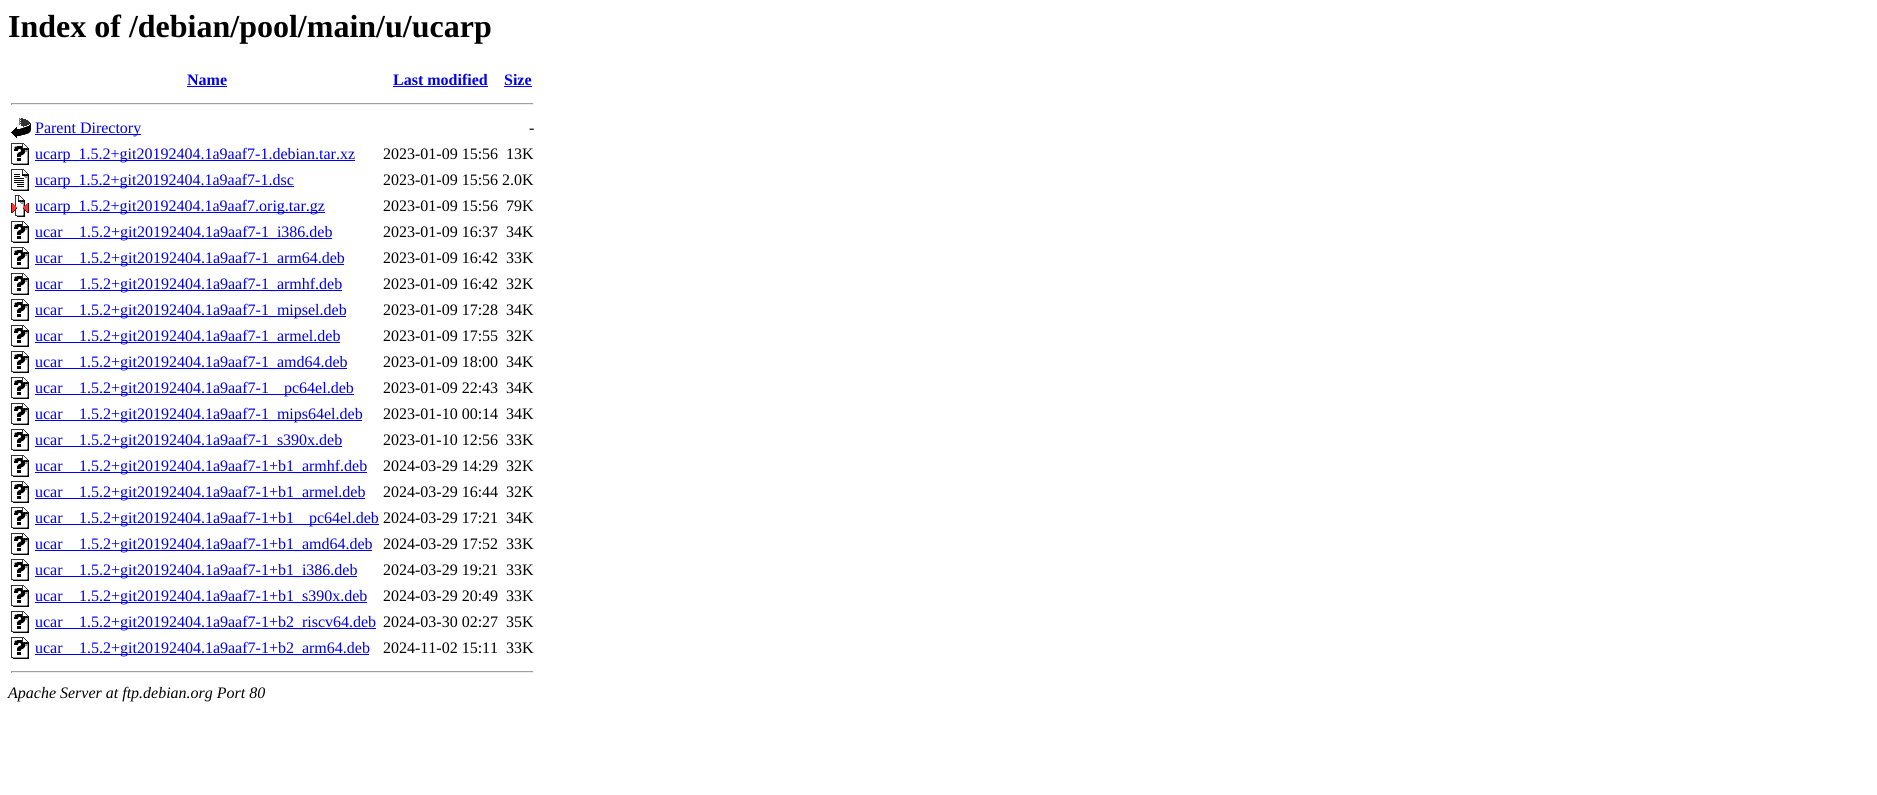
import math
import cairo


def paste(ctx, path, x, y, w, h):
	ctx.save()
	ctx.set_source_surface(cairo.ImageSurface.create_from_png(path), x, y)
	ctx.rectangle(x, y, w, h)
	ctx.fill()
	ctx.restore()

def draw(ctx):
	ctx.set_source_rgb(1, 1, 1)
	ctx.paint()
	ctx.select_font_face('Liberation Serif', cairo.FONT_SLANT_NORMAL, cairo.FONT_WEIGHT_BOLD)
	ctx.set_font_size(32)
	ctx.set_source_rgb(0, 0, 0)
	ctx.move_to(8, 37)
	ctx.show_text('Index of /debian/pool/main/u/ucarp')
	ctx.set_font_size(16)
	ctx.set_source_rgb(0, 0, 0.933)
	ctx.move_to(187, 85)
	ctx.show_text('Name')
	ctx.rectangle(187, 86, 40, 1)
	ctx.fill()
	ctx.move_to(393, 85)
	ctx.show_text('Last modified')
	ctx.rectangle(393, 86, 95, 1)
	ctx.fill()
	ctx.move_to(504, 85)
	ctx.show_text('Size')
	ctx.rectangle(504, 86, 28, 1)
	ctx.fill()
	ctx.set_source_rgb(0.624, 0.624, 0.624)
	ctx.rectangle(11, 103, 523, 1)
	ctx.fill()
	ctx.set_source_rgb(0.933, 0.933, 0.933)
	ctx.rectangle(533, 103, 1, 2)
	ctx.rectangle(11, 104, 523, 1)
	ctx.fill()
	ctx.set_source_rgb(0.624, 0.624, 0.624)
	ctx.rectangle(11, 103, 1, 2)
	ctx.fill()
	paste(ctx, 'media/1.png', 11, 118, 20, 20)
	ctx.set_source_rgb(0, 0, 0.933)
	ctx.rectangle(35, 134, 106, 1)
	ctx.fill()
	ctx.select_font_face('Liberation Serif')
	ctx.move_to(35, 133)
	ctx.show_text('Parent Directory')
	ctx.set_source_rgb(0, 0, 0)
	ctx.move_to(529, 133)
	ctx.show_text('-')
	paste(ctx, 'media/2.png', 11, 143, 18, 22)
	ctx.set_source_rgb(0, 0, 0.933)
	ctx.rectangle(35, 160, 320, 1)
	ctx.fill()
	ctx.move_to(35, 159)
	ctx.show_text('ucarp_1.5.2+git20192404.1a9aaf7-1.debian.tar.xz')
	ctx.set_source_rgb(0, 0, 0)
	ctx.move_to(383, 159)
	ctx.show_text('2023-01-09 15:56')
	ctx.move_to(506, 159)
	ctx.show_text('13K')
	paste(ctx, 'media/3.png', 11, 169, 18, 22)
	ctx.set_source_rgb(0, 0, 0.933)
	ctx.rectangle(35, 186, 259, 1)
	ctx.fill()
	ctx.move_to(35, 185)
	ctx.show_text('ucarp_1.5.2+git20192404.1a9aaf7-1.dsc')
	ctx.set_source_rgb(0, 0, 0)
	ctx.move_to(383, 185)
	ctx.show_text('2023-01-09 15:56 2.0K')
	paste(ctx, 'media/4.png', 11, 195, 18, 22)
	ctx.set_source_rgb(0, 0, 0.933)
	ctx.rectangle(35, 212, 290, 1)
	ctx.fill()
	ctx.move_to(35, 211)
	ctx.show_text('ucarp_1.5.2+git20192404.1a9aaf7.orig.tar.gz')
	ctx.set_source_rgb(0, 0, 0)
	ctx.move_to(383, 211)
	ctx.show_text('2023-01-09 15:56')
	ctx.move_to(506, 211)
	ctx.show_text('79K')
	paste(ctx, 'media/2.png', 11, 221, 18, 22)
	ctx.set_source_rgb(0, 0, 0.933)
	ctx.move_to(35, 237)
	ctx.show_text('ucar')
	ctx.rectangle(35, 238, 297, 1)
	ctx.fill()
	ctx.move_to(79, 237)
	ctx.show_text('1.5.2+git20192404.1a9aaf7-1_i386.deb')
	ctx.set_source_rgb(0, 0, 0)
	ctx.move_to(383, 237)
	ctx.show_text('2023-01-09 16:37')
	ctx.move_to(506, 237)
	ctx.show_text('34K')
	paste(ctx, 'media/2.png', 11, 247, 18, 22)
	ctx.set_source_rgb(0, 0, 0.933)
	ctx.move_to(35, 263)
	ctx.show_text('ucar')
	ctx.rectangle(35, 264, 309, 1)
	ctx.fill()
	ctx.move_to(79, 263)
	ctx.show_text('1.5.2+git20192404.1a9aaf7-1_arm64.deb')
	ctx.set_source_rgb(0, 0, 0)
	ctx.move_to(383, 263)
	ctx.show_text('2023-01-09 16:42')
	ctx.move_to(506, 263)
	ctx.show_text('33K')
	paste(ctx, 'media/2.png', 11, 273, 18, 22)
	ctx.set_source_rgb(0, 0, 0.933)
	ctx.move_to(35, 289)
	ctx.show_text('ucar')
	ctx.rectangle(35, 290, 307, 1)
	ctx.fill()
	ctx.move_to(79, 289)
	ctx.show_text('1.5.2+git20192404.1a9aaf7-1_armhf.deb')
	ctx.set_source_rgb(0, 0, 0)
	ctx.move_to(383, 289)
	ctx.show_text('2023-01-09 16:42')
	ctx.move_to(506, 289)
	ctx.show_text('32K')
	paste(ctx, 'media/2.png', 11, 299, 18, 22)
	ctx.set_source_rgb(0, 0, 0.933)
	ctx.move_to(35, 315)
	ctx.show_text('ucar')
	ctx.rectangle(35, 316, 311, 1)
	ctx.fill()
	ctx.move_to(79, 315)
	ctx.show_text('1.5.2+git20192404.1a9aaf7-1_mipsel.deb')
	ctx.set_source_rgb(0, 0, 0)
	ctx.move_to(383, 315)
	ctx.show_text('2023-01-09 17:28')
	ctx.move_to(506, 315)
	ctx.show_text('34K')
	paste(ctx, 'media/2.png', 11, 325, 18, 22)
	ctx.set_source_rgb(0, 0, 0.933)
	ctx.move_to(35, 341)
	ctx.show_text('ucar')
	ctx.rectangle(35, 342, 305, 1)
	ctx.fill()
	ctx.move_to(79, 341)
	ctx.show_text('1.5.2+git20192404.1a9aaf7-1_armel.deb')
	ctx.set_source_rgb(0, 0, 0)
	ctx.move_to(383, 341)
	ctx.show_text('2023-01-09 17:55')
	ctx.move_to(506, 341)
	ctx.show_text('32K')
	paste(ctx, 'media/2.png', 11, 351, 18, 22)
	ctx.set_source_rgb(0, 0, 0.933)
	ctx.move_to(35, 367)
	ctx.show_text('ucar')
	ctx.rectangle(35, 368, 312, 1)
	ctx.fill()
	ctx.move_to(79, 367)
	ctx.show_text('1.5.2+git20192404.1a9aaf7-1_amd64.deb')
	ctx.set_source_rgb(0, 0, 0)
	ctx.move_to(383, 367)
	ctx.show_text('2023-01-09 18:00')
	ctx.move_to(506, 367)
	ctx.show_text('34K')
	paste(ctx, 'media/2.png', 11, 377, 18, 22)
	ctx.set_source_rgb(0, 0, 0.933)
	ctx.move_to(35, 393)
	ctx.show_text('ucar')
	ctx.rectangle(35, 394, 319, 1)
	ctx.fill()
	ctx.move_to(79, 393)
	ctx.show_text('1.5.2+git20192404.1a9aaf7-1')
	ctx.move_to(284, 393)
	ctx.show_text('pc64el.deb')
	ctx.set_source_rgb(0, 0, 0)
	ctx.move_to(383, 393)
	ctx.show_text('2023-01-09 22:43')
	ctx.move_to(506, 393)
	ctx.show_text('34K')
	paste(ctx, 'media/2.png', 11, 403, 18, 22)
	ctx.set_source_rgb(0, 0, 0.933)
	ctx.move_to(35, 419)
	ctx.show_text('ucar')
	ctx.rectangle(35, 420, 327, 1)
	ctx.fill()
	ctx.move_to(79, 419)
	ctx.show_text('1.5.2+git20192404.1a9aaf7-1_mips64el.deb')
	ctx.set_source_rgb(0, 0, 0)
	ctx.move_to(383, 419)
	ctx.show_text('2023-01-10 00:14')
	ctx.move_to(506, 419)
	ctx.show_text('34K')
	paste(ctx, 'media/2.png', 11, 429, 18, 22)
	ctx.set_source_rgb(0, 0, 0.933)
	ctx.move_to(35, 445)
	ctx.show_text('ucar')
	ctx.rectangle(35, 446, 307, 1)
	ctx.fill()
	ctx.move_to(79, 445)
	ctx.show_text('1.5.2+git20192404.1a9aaf7-1_s390x.deb')
	ctx.set_source_rgb(0, 0, 0)
	ctx.move_to(383, 445)
	ctx.show_text('2023-01-10 12:56')
	ctx.move_to(506, 445)
	ctx.show_text('33K')
	paste(ctx, 'media/2.png', 11, 455, 18, 22)
	ctx.set_source_rgb(0, 0, 0.933)
	ctx.move_to(35, 471)
	ctx.show_text('ucar')
	ctx.rectangle(35, 472, 332, 1)
	ctx.fill()
	ctx.move_to(79, 471)
	ctx.show_text('1.5.2+git20192404.1a9aaf7-1+b1_armhf.deb')
	ctx.set_source_rgb(0, 0, 0)
	ctx.move_to(383, 471)
	ctx.show_text('2024-03-29 14:29')
	ctx.move_to(506, 471)
	ctx.show_text('32K')
	paste(ctx, 'media/2.png', 11, 481, 18, 22)
	ctx.set_source_rgb(0, 0, 0.933)
	ctx.move_to(35, 497)
	ctx.show_text('ucar')
	ctx.rectangle(35, 498, 330, 1)
	ctx.fill()
	ctx.move_to(79, 497)
	ctx.show_text('1.5.2+git20192404.1a9aaf7-1+b1_armel.deb')
	ctx.set_source_rgb(0, 0, 0)
	ctx.move_to(383, 497)
	ctx.show_text('2024-03-29 16:44')
	ctx.move_to(506, 497)
	ctx.show_text('32K')
	paste(ctx, 'media/2.png', 11, 507, 18, 22)
	ctx.set_source_rgb(0, 0, 0.933)
	ctx.move_to(35, 523)
	ctx.show_text('ucar')
	ctx.rectangle(35, 524, 344, 1)
	ctx.fill()
	ctx.move_to(79, 523)
	ctx.show_text('1.5.2+git20192404.1a9aaf7-1+b1')
	ctx.move_to(309, 523)
	ctx.show_text('pc64el.deb')
	ctx.set_source_rgb(0, 0, 0)
	ctx.move_to(383, 523)
	ctx.show_text('2024-03-29 17:21')
	ctx.move_to(506, 523)
	ctx.show_text('34K')
	paste(ctx, 'media/2.png', 11, 533, 18, 22)
	ctx.set_source_rgb(0, 0, 0.933)
	ctx.move_to(35, 549)
	ctx.show_text('ucar')
	ctx.rectangle(35, 550, 337, 1)
	ctx.fill()
	ctx.move_to(79, 549)
	ctx.show_text('1.5.2+git20192404.1a9aaf7-1+b1_amd64.deb')
	ctx.set_source_rgb(0, 0, 0)
	ctx.move_to(383, 549)
	ctx.show_text('2024-03-29 17:52')
	ctx.move_to(506, 549)
	ctx.show_text('33K')
	paste(ctx, 'media/2.png', 11, 559, 18, 22)
	ctx.set_source_rgb(0, 0, 0.933)
	ctx.move_to(35, 575)
	ctx.show_text('ucar')
	ctx.rectangle(35, 576, 322, 1)
	ctx.fill()
	ctx.move_to(79, 575)
	ctx.show_text('1.5.2+git20192404.1a9aaf7-1+b1_i386.deb')
	ctx.set_source_rgb(0, 0, 0)
	ctx.move_to(383, 575)
	ctx.show_text('2024-03-29 19:21')
	ctx.move_to(506, 575)
	ctx.show_text('33K')
	paste(ctx, 'media/2.png', 11, 585, 18, 22)
	ctx.set_source_rgb(0, 0, 0.933)
	ctx.move_to(35, 601)
	ctx.show_text('ucar')
	ctx.rectangle(35, 602, 332, 1)
	ctx.fill()
	ctx.move_to(79, 601)
	ctx.show_text('1.5.2+git20192404.1a9aaf7-1+b1_s390x.deb')
	ctx.set_source_rgb(0, 0, 0)
	ctx.move_to(383, 601)
	ctx.show_text('2024-03-29 20:49')
	ctx.move_to(506, 601)
	ctx.show_text('33K')
	paste(ctx, 'media/2.png', 11, 611, 18, 22)
	ctx.set_source_rgb(0, 0, 0.933)
	ctx.move_to(35, 627)
	ctx.show_text('ucar')
	ctx.rectangle(35, 628, 341, 1)
	ctx.fill()
	ctx.move_to(79, 627)
	ctx.show_text('1.5.2+git20192404.1a9aaf7-1+b2_riscv64.deb')
	ctx.set_source_rgb(0, 0, 0)
	ctx.move_to(383, 627)
	ctx.show_text('2024-03-30 02:27')
	ctx.move_to(506, 627)
	ctx.show_text('35K')
	paste(ctx, 'media/2.png', 11, 637, 18, 22)
	ctx.set_source_rgb(0, 0, 0.933)
	ctx.move_to(35, 653)
	ctx.show_text('ucar')
	ctx.rectangle(35, 654, 334, 1)
	ctx.fill()
	ctx.move_to(79, 653)
	ctx.show_text('1.5.2+git20192404.1a9aaf7-1+b2_arm64.deb')
	ctx.set_source_rgb(0, 0, 0)
	ctx.move_to(383, 653)
	ctx.show_text('2024-11-02 15:11')
	ctx.move_to(506, 653)
	ctx.show_text('33K')
	ctx.set_source_rgb(0.624, 0.624, 0.624)
	ctx.rectangle(11, 671, 523, 1)
	ctx.fill()
	ctx.set_source_rgb(0.933, 0.933, 0.933)
	ctx.rectangle(533, 671, 1, 2)
	ctx.rectangle(11, 672, 523, 1)
	ctx.fill()
	ctx.set_source_rgb(0.624, 0.624, 0.624)
	ctx.rectangle(11, 671, 1, 2)
	ctx.fill()
	ctx.select_font_face('Liberation Serif', cairo.FONT_SLANT_ITALIC)
	ctx.set_source_rgb(0, 0, 0)
	ctx.move_to(8, 698)
	ctx.show_text('Apache Server at ftp.debian.org Port 80')


surface = cairo.ImageSurface(cairo.FORMAT_RGB24, 1877, 795)
ctx = cairo.Context(surface)
options = cairo.FontOptions()
options.set_hint_metrics(cairo.HINT_METRICS_OFF)
options.set_hint_style(cairo.HINT_STYLE_NONE)
ctx.set_font_options(options)
ctx.set_miter_limit(4)
draw(ctx)
surface.write_to_png('image.png')
